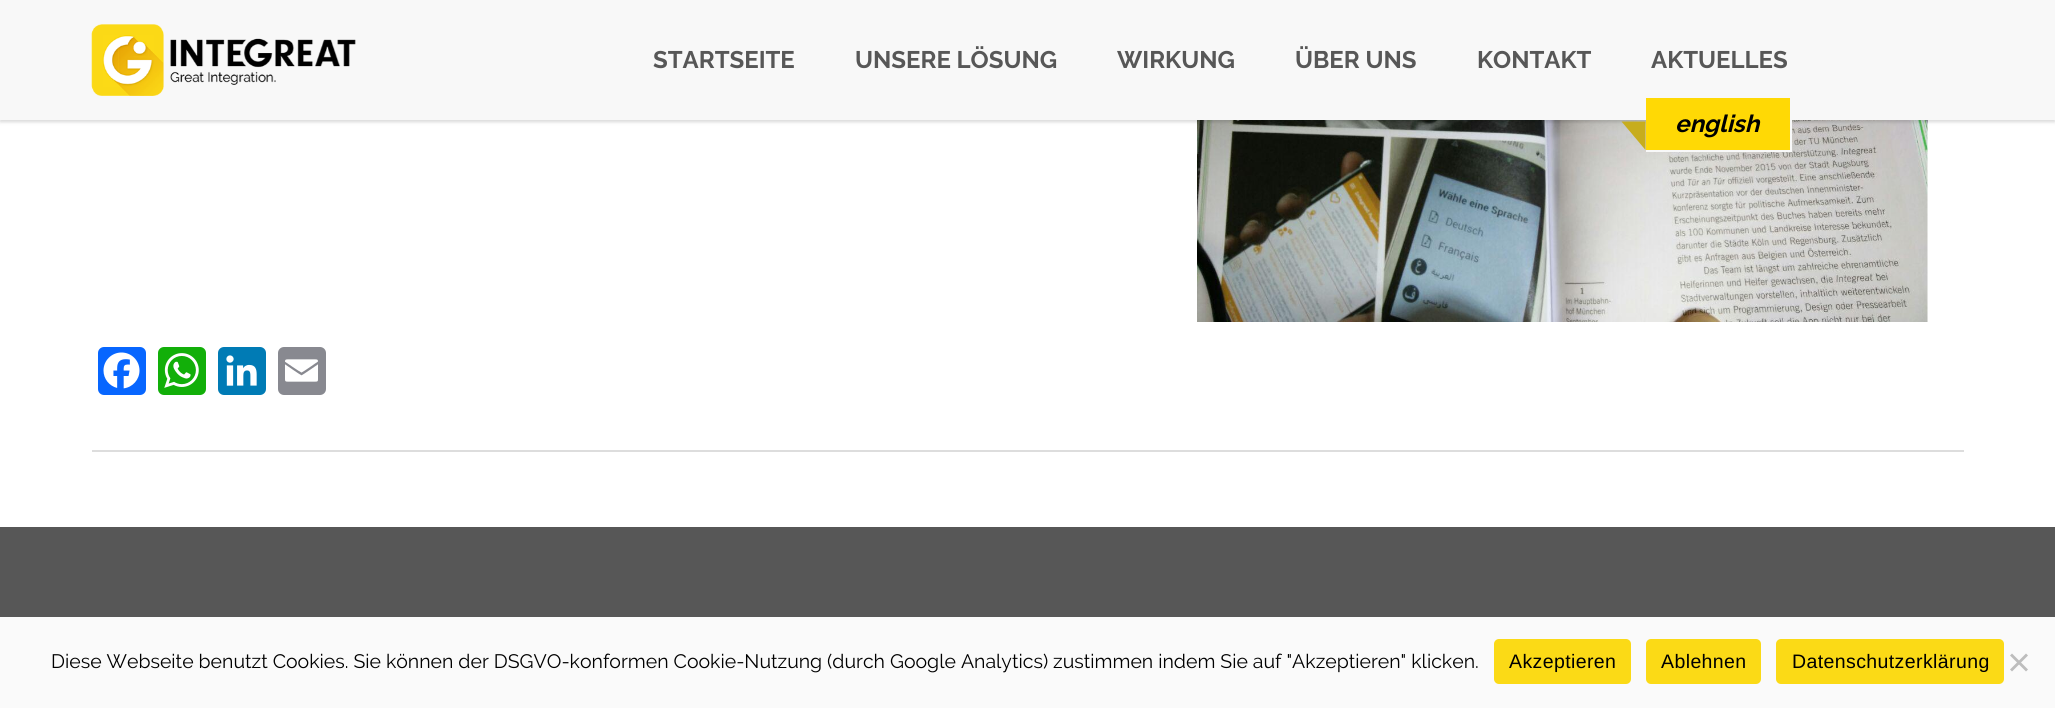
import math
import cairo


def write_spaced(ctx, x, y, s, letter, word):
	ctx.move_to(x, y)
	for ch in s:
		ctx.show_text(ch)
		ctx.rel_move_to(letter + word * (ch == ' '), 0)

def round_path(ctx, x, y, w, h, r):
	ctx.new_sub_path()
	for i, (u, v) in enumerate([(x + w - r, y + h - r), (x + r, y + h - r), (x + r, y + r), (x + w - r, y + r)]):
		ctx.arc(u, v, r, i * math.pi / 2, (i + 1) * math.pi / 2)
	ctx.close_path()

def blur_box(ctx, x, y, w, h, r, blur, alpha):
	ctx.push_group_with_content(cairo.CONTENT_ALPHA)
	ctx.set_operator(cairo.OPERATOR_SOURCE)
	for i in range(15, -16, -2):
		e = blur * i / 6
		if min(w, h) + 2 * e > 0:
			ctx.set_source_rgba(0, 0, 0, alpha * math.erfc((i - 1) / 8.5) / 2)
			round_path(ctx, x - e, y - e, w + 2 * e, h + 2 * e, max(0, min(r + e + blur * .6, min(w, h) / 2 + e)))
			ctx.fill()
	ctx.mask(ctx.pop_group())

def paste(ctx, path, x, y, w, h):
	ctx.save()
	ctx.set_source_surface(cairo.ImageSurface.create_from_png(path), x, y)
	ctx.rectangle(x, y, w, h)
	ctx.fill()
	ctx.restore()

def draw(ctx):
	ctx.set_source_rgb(1, 1, 1)
	ctx.paint()
	paste(ctx, 'media/2.png', 1197, 120, 731, 202)
	ctx.set_source_rgb(0, 0, 0)
	blur_box(ctx, 0, 2, 2055, 120, 0, 1.5, 0.06)
	blur_box(ctx, 0, 2, 2055, 120, 0, 2, 0.1)
	ctx.set_source_rgb(0.969, 0.969, 0.969)
	ctx.rectangle(0, 0, 2055, 120)
	ctx.fill()
	paste(ctx, 'media/1.png', 91, 24, 265, 72)
	ctx.select_font_face('Raleway', cairo.FONT_SLANT_NORMAL, cairo.FONT_WEIGHT_BOLD)
	ctx.set_font_size(24)
	ctx.set_source_rgb(0.341, 0.341, 0.341)
	for x, y, s in [
		(653, 68, 'STARTSEITE'),
		(855, 68, 'UNSERE LÖSUNG'),
		(1117, 68, 'WIRKUNG'),
		(1295, 68, 'ÜBER UNS'),
		(1477, 68, 'KONTAKT'),
		(1651, 68, 'AKTUELLES'),
	]:
		ctx.move_to(x, y)
		ctx.show_text(s)
	ctx.set_source_rgb(1, 0.851, 0.02)
	ctx.rectangle(1646, 98, 144, 52)
	ctx.fill()
	ctx.set_source_rgb(0.969, 0.969, 0.969)
	ctx.rectangle(1790, 120, 2, 32)
	ctx.rectangle(1646, 150, 145, 2)
	ctx.fill()
	ctx.set_source_rgb(0.78, 0.678, 0.114)
	ctx.new_path()
	ctx.move_to(1645.5, 121.5)
	ctx.line_to(1645.5, 150)
	ctx.line_to(1621.5, 121.5)
	ctx.close_path()
	ctx.fill()
	ctx.select_font_face('Raleway', cairo.FONT_SLANT_ITALIC, cairo.FONT_WEIGHT_BOLD)
	ctx.set_source_rgb(0, 0, 0)
	ctx.move_to(1675, 132)
	ctx.show_text('english')
	ctx.set_source_rgb(0.867, 0.867, 0.867)
	ctx.rectangle(92, 450, 1872, 2)
	ctx.fill()
	ctx.set_source_rgb(0.031, 0.4, 1)
	round_path(ctx, 98, 347, 48, 48, 6)
	ctx.fill()
	paste(ctx, 'media/3.png', 103, 352, 37, 37)
	ctx.set_source_rgb(0.071, 0.686, 0.039)
	round_path(ctx, 158, 347, 48, 48, 6)
	ctx.fill()
	paste(ctx, 'media/4.png', 164, 353, 35, 35)
	ctx.set_source_rgb(0, 0.482, 0.71)
	round_path(ctx, 218, 347, 48, 48, 6)
	ctx.fill()
	paste(ctx, 'media/5.png', 226, 355, 31, 31)
	ctx.set_source_rgb(0.533, 0.537, 0.565)
	round_path(ctx, 278, 347, 48, 48, 6)
	ctx.fill()
	paste(ctx, 'media/6.png', 285, 359, 33, 23)
	ctx.set_source_rgb(0.341, 0.341, 0.341)
	ctx.rectangle(0, 527, 2055, 90)
	ctx.fill()
	ctx.set_source_rgb(0.98, 0.98, 0.98)
	ctx.rectangle(0, 617, 2055, 91)
	ctx.fill()
	ctx.select_font_face('Raleway')
	ctx.set_font_size(19.5)
	ctx.set_source_rgb(0, 0, 0)
	ctx.move_to(51, 668)
	ctx.show_text('Diese Webseite benutzt Cookies. Sie können der DSGVO-konformen Cookie-Nutzung (durch Google Analytics) zustimmen indem Sie auf "Akzeptieren" klicken.')
	ctx.set_source_rgb(0.984, 0.855, 0.086)
	round_path(ctx, 1494, 639, 137, 45, 5)
	ctx.fill()
	ctx.select_font_face('Liberation Sans')
	ctx.set_source_rgb(0, 0, 0)
	write_spaced(ctx, 1509, 668, 'Akzeptieren', 0.4, 0)
	ctx.set_source_rgb(0.984, 0.855, 0.086)
	round_path(ctx, 1646, 639, 115, 45, 5)
	ctx.fill()
	ctx.set_source_rgb(0, 0, 0)
	write_spaced(ctx, 1661, 668, 'Ablehnen', 0.4, 0)
	ctx.set_source_rgb(0.984, 0.855, 0.086)
	round_path(ctx, 1776, 639, 228, 45, 5)
	ctx.fill()
	ctx.set_source_rgb(0, 0, 0)
	write_spaced(ctx, 1792, 668, 'Datenschutzerklärung', 0.4, 0)
	ctx.set_source_rgb(0.741, 0.741, 0.741)
	ctx.new_path()
	ctx.move_to(2026, 653.5)
	ctx.line_to(2028, 655.5)
	ctx.line_to(2012, 671.5)
	ctx.line_to(2010, 669.5)
	ctx.close_path()
	ctx.fill()
	ctx.new_path()
	ctx.move_to(2010, 655.5)
	ctx.line_to(2012, 653.5)
	ctx.line_to(2028, 669.5)
	ctx.line_to(2026, 671.5)
	ctx.close_path()
	ctx.fill()


surface = cairo.ImageSurface(cairo.FORMAT_RGB24, 2055, 708)
ctx = cairo.Context(surface)
options = cairo.FontOptions()
options.set_hint_metrics(cairo.HINT_METRICS_OFF)
options.set_hint_style(cairo.HINT_STYLE_NONE)
ctx.set_font_options(options)
ctx.set_miter_limit(4)
draw(ctx)
surface.write_to_png('image.png')
